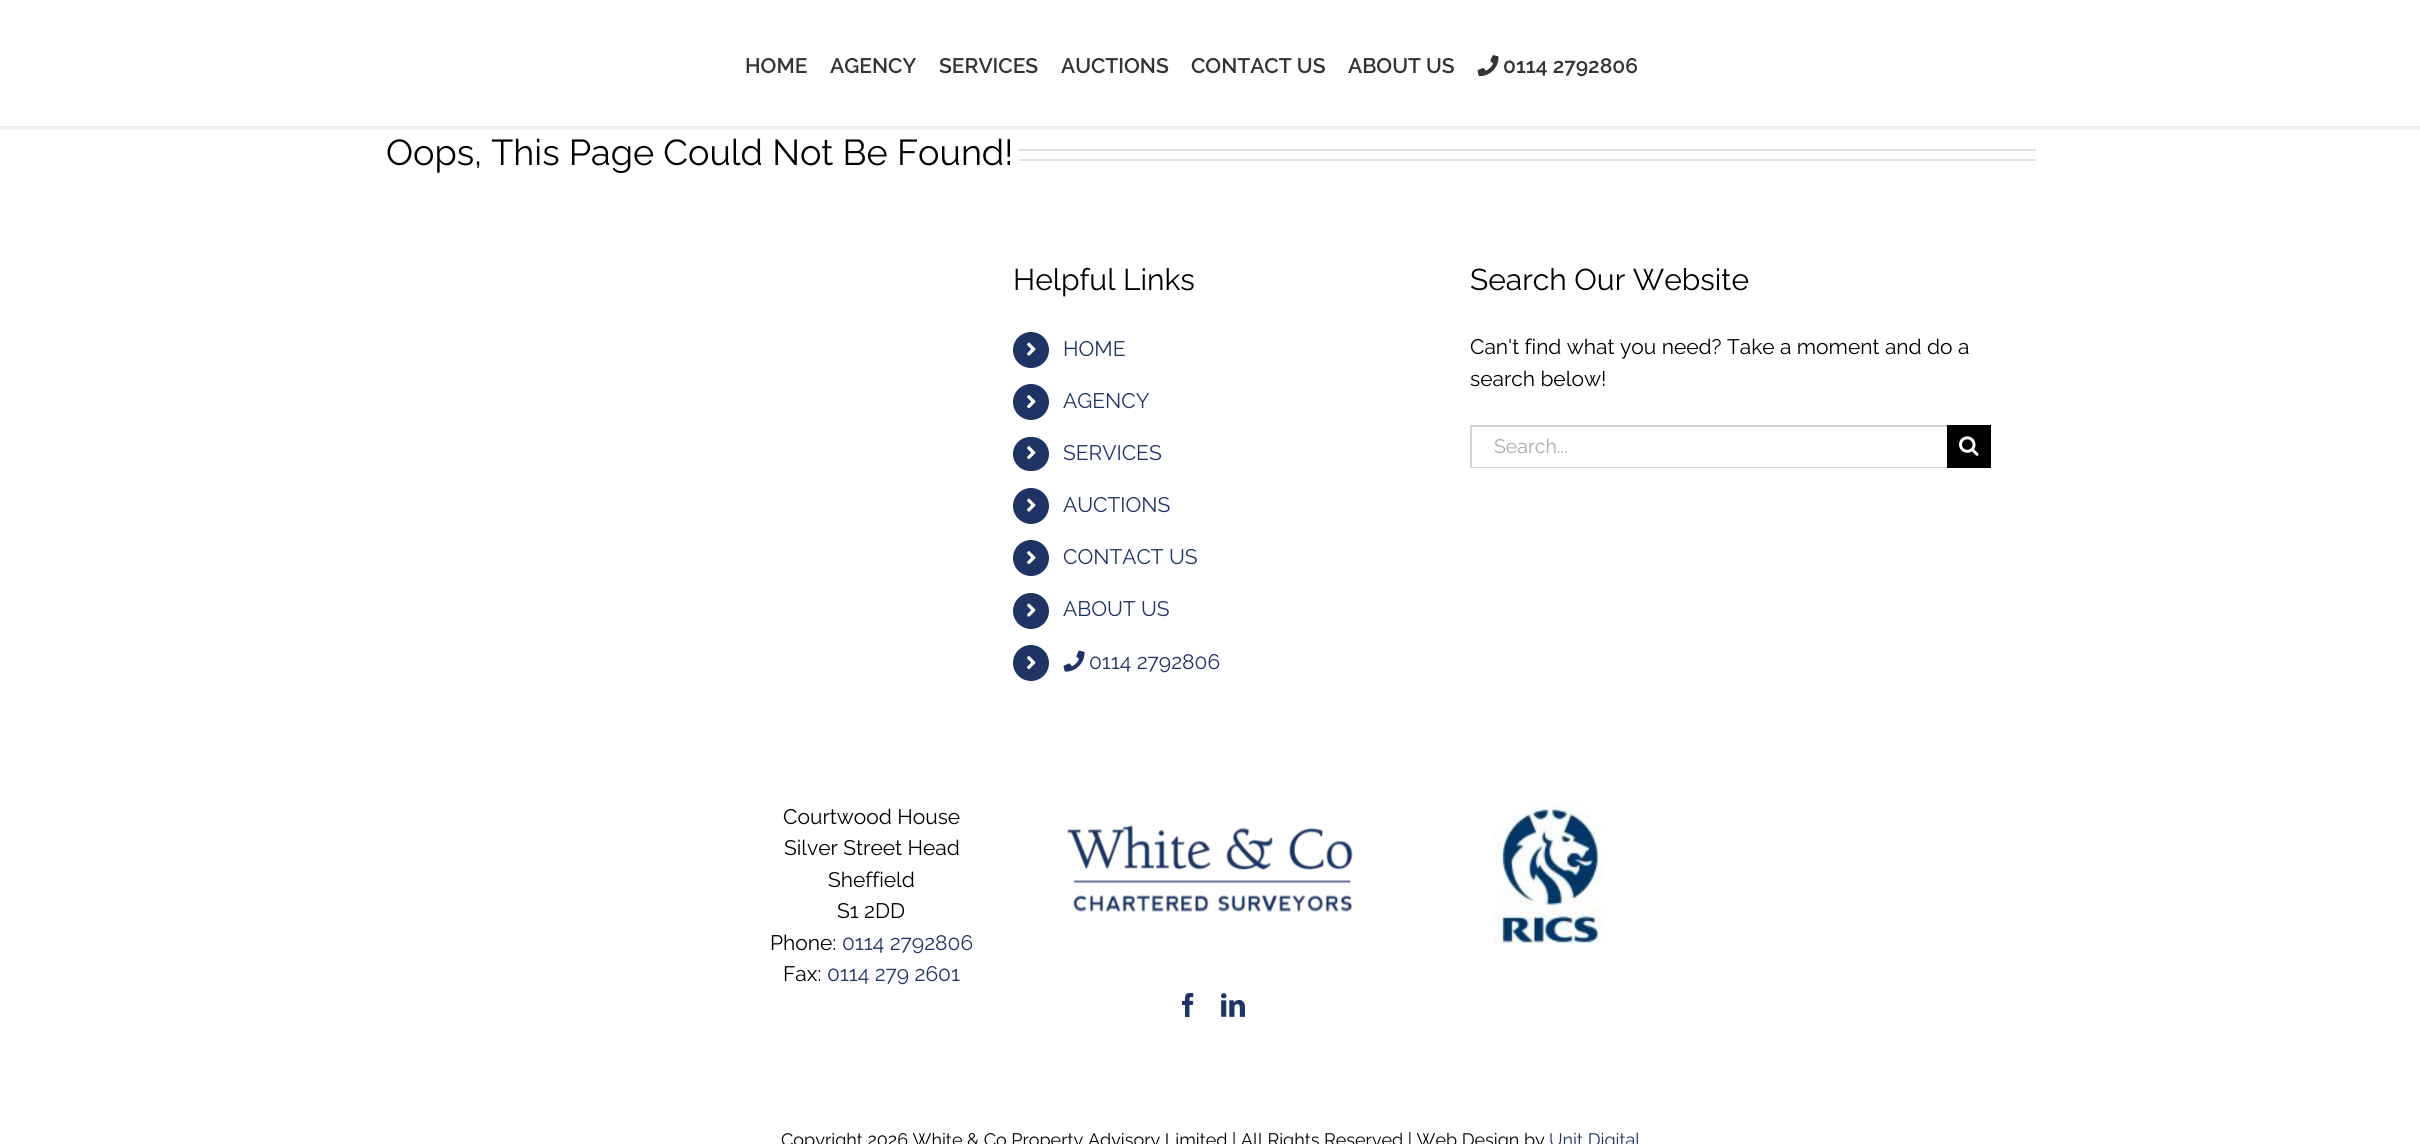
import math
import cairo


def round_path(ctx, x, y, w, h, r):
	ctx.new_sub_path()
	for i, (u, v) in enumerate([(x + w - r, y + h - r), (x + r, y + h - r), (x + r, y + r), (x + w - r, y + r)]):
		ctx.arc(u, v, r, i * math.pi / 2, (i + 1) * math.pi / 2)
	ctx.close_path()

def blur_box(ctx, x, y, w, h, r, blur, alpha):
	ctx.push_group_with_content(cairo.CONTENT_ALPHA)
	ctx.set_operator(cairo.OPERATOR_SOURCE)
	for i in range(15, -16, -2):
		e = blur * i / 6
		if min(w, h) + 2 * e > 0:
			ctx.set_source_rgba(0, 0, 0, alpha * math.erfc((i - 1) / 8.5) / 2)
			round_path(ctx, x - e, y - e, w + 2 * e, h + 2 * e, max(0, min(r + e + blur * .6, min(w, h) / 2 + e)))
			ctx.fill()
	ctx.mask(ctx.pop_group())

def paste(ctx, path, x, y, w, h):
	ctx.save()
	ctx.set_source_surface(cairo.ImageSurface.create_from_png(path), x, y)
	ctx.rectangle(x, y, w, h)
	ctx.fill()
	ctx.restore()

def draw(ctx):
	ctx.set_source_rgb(1, 1, 1)
	ctx.paint()
	ctx.save()
	ctx.rectangle(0, 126, 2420, 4)
	ctx.clip()
	ctx.set_source_rgb(0, 0, 0)
	blur_box(ctx, 0, 2, 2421, 126, 0, 2, 0.12)
	ctx.restore()
	ctx.select_font_face('Raleway SemiBold')
	ctx.set_font_size(21)
	ctx.set_source_rgb(0.2, 0.2, 0.2)
	for x, y, s in [
		(745, 73, 'HOME'),
		(830, 73, 'AGENCY'),
		(939, 73, 'SERVICES'),
		(1061, 73, 'AUCTIONS'),
		(1191, 73, 'CONTACT US'),
		(1348, 73, 'ABOUT US'),
	]:
		ctx.move_to(x, y)
		ctx.show_text(s)
	paste(ctx, 'media/1.png', 1477, 55, 22, 22)
	ctx.move_to(1503, 73)
	ctx.show_text('0114 2792806')
	ctx.select_font_face('Raleway')
	ctx.set_font_size(36)
	ctx.set_source_rgb(0, 0, 0)
	ctx.move_to(386, 165)
	ctx.show_text('Oops, This Page Could Not Be Found!')
	ctx.set_source_rgb(0.878, 0.871, 0.871)
	ctx.rectangle(1019, 149, 1017, 2)
	ctx.fill()
	ctx.rectangle(1019, 159, 1017, 2)
	ctx.fill()
	ctx.set_font_size(30)
	ctx.set_source_rgb(0, 0, 0)
	ctx.move_to(1013, 290)
	ctx.show_text('Helpful Links')
	ctx.set_source_rgb(0.122, 0.2, 0.396)
	ctx.new_path()
	ctx.arc(1031, 350, 18, 0, 2 * math.pi)
	ctx.fill()
	paste(ctx, 'media/2.png', 1027, 342, 9, 14)
	ctx.set_font_size(21)
	ctx.move_to(1063, 356)
	ctx.show_text('HOME')
	ctx.new_path()
	ctx.arc(1031, 402, 18, 0, 2 * math.pi)
	ctx.fill()
	paste(ctx, 'media/3.png', 1027, 395, 9, 14)
	ctx.move_to(1063, 408)
	ctx.show_text('AGENCY')
	round_path(ctx, 1013, 437, 36, 34, 17)
	ctx.fill()
	paste(ctx, 'media/3.png', 1027, 446, 9, 14)
	ctx.move_to(1063, 460)
	ctx.show_text('SERVICES')
	ctx.new_path()
	ctx.arc(1031, 506, 18, 0, 2 * math.pi)
	ctx.fill()
	paste(ctx, 'media/2.png', 1027, 498, 9, 14)
	ctx.move_to(1063, 512)
	ctx.show_text('AUCTIONS')
	ctx.new_path()
	ctx.arc(1031, 558, 18, 0, 2 * math.pi)
	ctx.fill()
	paste(ctx, 'media/3.png', 1027, 551, 9, 14)
	ctx.move_to(1063, 564)
	ctx.show_text('CONTACT US')
	ctx.new_path()
	ctx.arc(1031, 611, 18, 0, 2 * math.pi)
	ctx.fill()
	paste(ctx, 'media/2.png', 1027, 603, 9, 14)
	ctx.move_to(1063, 616)
	ctx.show_text('ABOUT US')
	ctx.new_path()
	ctx.arc(1031, 663, 18, 0, 2 * math.pi)
	ctx.fill()
	paste(ctx, 'media/3.png', 1027, 656, 9, 14)
	paste(ctx, 'media/4.png', 1063, 650, 22, 22)
	ctx.move_to(1089, 669)
	ctx.show_text('0114 2792806')
	ctx.set_font_size(30)
	ctx.set_source_rgb(0, 0, 0)
	ctx.move_to(1470, 290)
	ctx.show_text('Search Our Website')
	ctx.set_font_size(21)
	ctx.move_to(1470, 354)
	ctx.show_text('Can\'t find what you need? Take a moment and do a')
	ctx.move_to(1470, 386)
	ctx.show_text('search below!')
	ctx.set_source_rgb(0.824, 0.824, 0.824)
	ctx.rectangle(1470, 425, 477, 2)
	ctx.rectangle(1470, 467, 477, 1)
	ctx.rectangle(1470, 425, 2, 43)
	ctx.fill()
	ctx.set_font_size(19.5)
	ctx.set_source_rgb(0.667, 0.663, 0.663)
	ctx.move_to(1494, 453)
	ctx.show_text('Search...')
	ctx.set_source_rgb(0, 0, 0)
	ctx.rectangle(1947, 425, 44, 43)
	ctx.fill()
	paste(ctx, 'media/5.png', 1959, 436, 20, 20)
	ctx.set_font_size(21)
	for x, y, s in [
		(783, 824, 'Courtwood House'),
		(784, 855, 'Silver Street Head'),
		(828, 887, 'Sheffield'),
		(837, 918, 'S1 2DD'),
		(770, 950, 'Phone:'),
	]:
		ctx.move_to(x, y)
		ctx.show_text(s)
	ctx.set_source_rgb(0.122, 0.2, 0.396)
	ctx.move_to(842, 950)
	ctx.show_text('0114 2792806')
	ctx.set_source_rgb(0, 0, 0)
	ctx.move_to(783, 981)
	ctx.show_text('Fax:')
	ctx.set_source_rgb(0.122, 0.2, 0.396)
	ctx.move_to(827, 981)
	ctx.show_text('0114 279 2601')
	paste(ctx, 'media/6.png', 1067, 825, 286, 87)
	paste(ctx, 'media/7.png', 1182, 993, 12, 24)
	paste(ctx, 'media/8.png', 1221, 993, 24, 24)
	paste(ctx, 'media/9.png', 1494, 801, 113, 145)
	ctx.set_font_size(18)
	ctx.set_source_rgb(0, 0, 0)
	ctx.move_to(781, 1146)
	ctx.show_text('Copyright 2026 White & Co Property Advisory Limited | All Rights Reserved | Web Design by')
	ctx.set_source_rgb(0.122, 0.2, 0.396)
	ctx.move_to(1549, 1146)
	ctx.show_text('Unit Digital')


surface = cairo.ImageSurface(cairo.FORMAT_RGB24, 2420, 1144)
ctx = cairo.Context(surface)
options = cairo.FontOptions()
options.set_hint_metrics(cairo.HINT_METRICS_OFF)
options.set_hint_style(cairo.HINT_STYLE_NONE)
ctx.set_font_options(options)
ctx.set_miter_limit(4)
draw(ctx)
surface.write_to_png('image.png')
